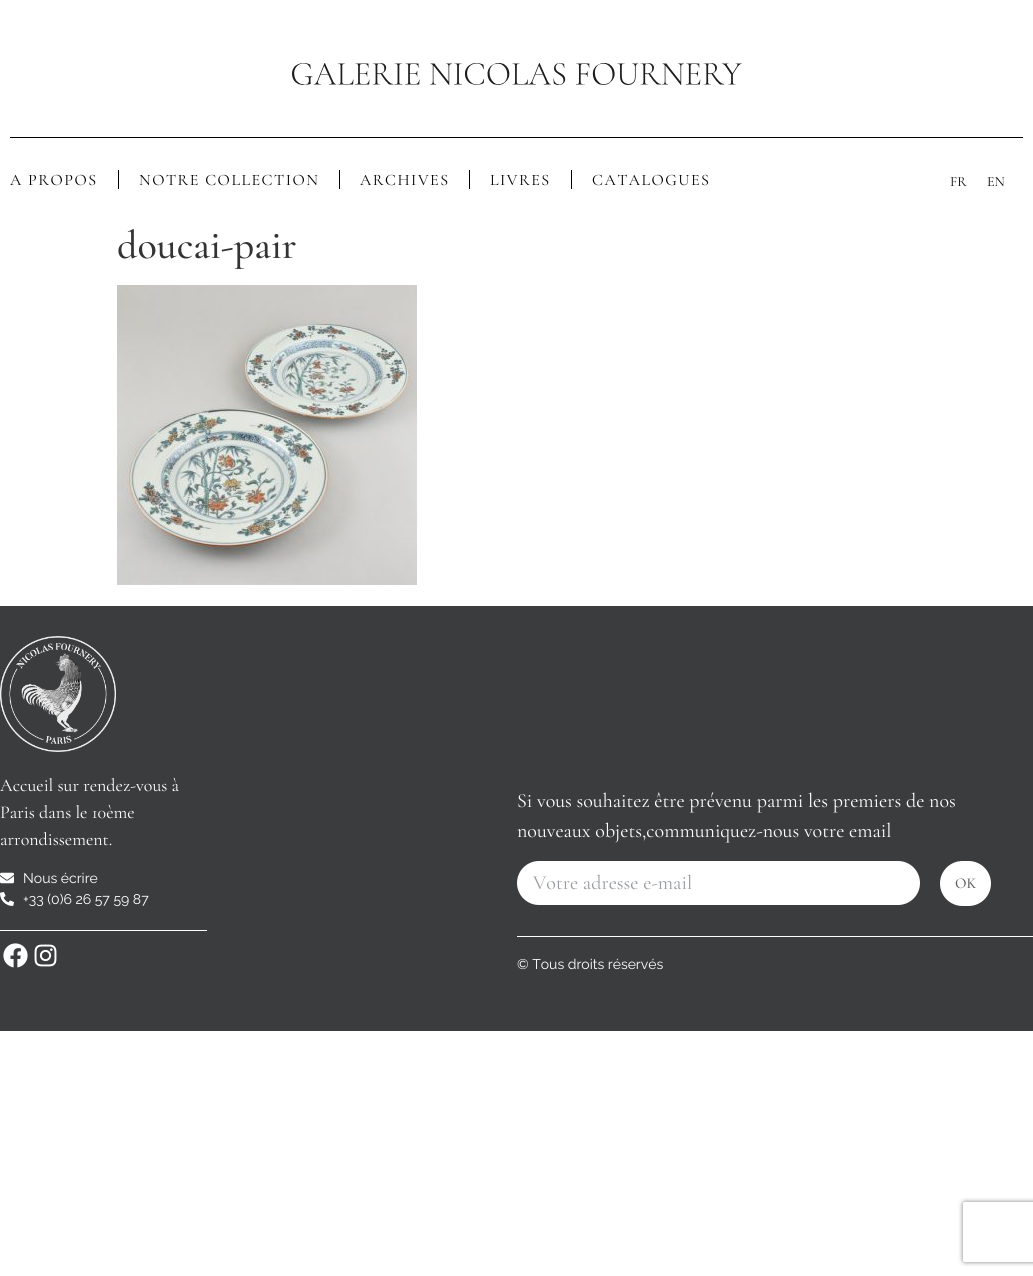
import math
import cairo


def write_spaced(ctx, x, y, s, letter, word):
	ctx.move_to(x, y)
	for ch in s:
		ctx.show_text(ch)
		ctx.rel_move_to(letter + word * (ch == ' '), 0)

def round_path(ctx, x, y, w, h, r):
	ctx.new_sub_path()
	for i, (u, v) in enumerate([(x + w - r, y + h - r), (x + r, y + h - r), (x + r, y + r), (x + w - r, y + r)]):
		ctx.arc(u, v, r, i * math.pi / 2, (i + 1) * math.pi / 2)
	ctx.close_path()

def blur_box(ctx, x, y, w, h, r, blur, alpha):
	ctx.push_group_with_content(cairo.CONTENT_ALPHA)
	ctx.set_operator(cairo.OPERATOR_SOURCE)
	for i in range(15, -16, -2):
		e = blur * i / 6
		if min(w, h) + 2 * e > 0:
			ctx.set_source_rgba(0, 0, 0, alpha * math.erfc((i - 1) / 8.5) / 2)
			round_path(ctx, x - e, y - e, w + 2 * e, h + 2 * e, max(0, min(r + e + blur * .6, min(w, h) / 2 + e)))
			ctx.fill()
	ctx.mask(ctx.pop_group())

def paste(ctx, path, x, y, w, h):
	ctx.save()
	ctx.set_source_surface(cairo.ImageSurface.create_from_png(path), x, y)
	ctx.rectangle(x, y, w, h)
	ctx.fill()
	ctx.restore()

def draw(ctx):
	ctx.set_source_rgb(1, 1, 1)
	ctx.paint()
	paste(ctx, 'media/1.png', 292, 63, 450, 22)
	ctx.set_source_rgb(0, 0, 0)
	ctx.rectangle(10, 137, 1013, 1)
	ctx.fill()
	ctx.select_font_face('Cormorant Garamond')
	ctx.set_font_size(16)
	write_spaced(ctx, 10, 185, 'A PROPOS', 1.5, 0)
	ctx.rectangle(118, 170, 1, 19)
	ctx.fill()
	write_spaced(ctx, 139, 185, 'NOTRE COLLECTION', 1.5, 0)
	ctx.rectangle(339, 170, 1, 19)
	ctx.fill()
	write_spaced(ctx, 360, 185, 'ARCHIVES', 1.5, 0)
	ctx.rectangle(469, 170, 1, 19)
	ctx.fill()
	write_spaced(ctx, 490, 185, 'LIVRES', 1.5, 0)
	ctx.rectangle(571, 170, 1, 19)
	ctx.fill()
	write_spaced(ctx, 592, 185, 'CATALOGUES', 1.5, 0)
	ctx.set_font_size(14)
	ctx.move_to(950, 186)
	ctx.show_text('FR')
	ctx.move_to(987, 186)
	ctx.show_text('EN')
	ctx.select_font_face('Cormorant Garamond Medium')
	ctx.set_font_size(40)
	ctx.set_source_rgb(0.2, 0.2, 0.2)
	ctx.move_to(117, 258)
	ctx.show_text('doucai-pair')
	paste(ctx, 'media/2.png', 117, 285, 300, 300)
	ctx.set_source_rgb(0.231, 0.235, 0.243)
	ctx.rectangle(0, 606, 1033, 425)
	ctx.fill()
	paste(ctx, 'media/3.png', 0, 636, 116, 116)
	ctx.select_font_face('Cormorant Garamond')
	ctx.set_font_size(18)
	ctx.set_source_rgb(1, 1, 1)
	for x, y, s in [
		(0, 791, 'Accueil sur rendez-vous à'),
		(0, 818, 'Paris dans le 10ème'),
		(0, 845, 'arrondissement.'),
	]:
		ctx.move_to(x, y)
		ctx.show_text(s)
	paste(ctx, 'media/4.png', 0, 872, 14, 12)
	ctx.select_font_face('Raleway')
	ctx.set_font_size(14)
	ctx.move_to(23, 883)
	ctx.show_text('Nous écrire')
	paste(ctx, 'media/5.png', 0, 892, 14, 14)
	ctx.move_to(23, 904)
	ctx.show_text('+33 (0)6 26 57 59 87')
	ctx.rectangle(0, 930, 207, 1)
	ctx.fill()
	paste(ctx, 'media/6.png', 3, 943, 25, 25)
	paste(ctx, 'media/7.png', 34, 944, 23, 23)
	ctx.select_font_face('Cormorant Garamond')
	ctx.set_font_size(20)
	ctx.move_to(517, 807)
	ctx.show_text('Si vous souhaitez être prévenu parmi les premiers de nos')
	ctx.move_to(517, 837)
	ctx.show_text('nouveaux objets,communiquez-nous votre email')
	round_path(ctx, 517, 861, 403, 44, 22)
	ctx.fill()
	ctx.set_source_rgb(0.596, 0.608, 0.624)
	ctx.move_to(533, 889)
	ctx.show_text('Votre adresse e-mail')
	ctx.set_source_rgb(1, 1, 1)
	round_path(ctx, 940, 861, 51, 45, 22.5)
	ctx.fill()
	ctx.select_font_face('Cormorant Garamond Medium')
	ctx.set_font_size(15)
	ctx.set_source_rgb(0.365, 0.365, 0.365)
	ctx.move_to(955, 888)
	ctx.show_text('OK')
	ctx.save()
	ctx.set_fill_rule(cairo.FILL_RULE_EVEN_ODD)
	ctx.new_path()
	ctx.move_to(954, 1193)
	ctx.line_to(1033, 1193)
	ctx.line_to(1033, 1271)
	ctx.line_to(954, 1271)
	ctx.close_path()
	ctx.move_to(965, 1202)
	ctx.line_to(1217, 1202)
	ctx.curve_to(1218, 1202, 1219, 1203, 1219, 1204)
	ctx.line_to(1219, 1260)
	ctx.curve_to(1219, 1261, 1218, 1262, 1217, 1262)
	ctx.line_to(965, 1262)
	ctx.curve_to(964, 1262, 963, 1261, 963, 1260)
	ctx.line_to(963, 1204)
	ctx.curve_to(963, 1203, 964, 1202, 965, 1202)
	ctx.close_path()
	ctx.clip()
	ctx.set_source_rgb(0.502, 0.502, 0.502)
	blur_box(ctx, 963, 1202, 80, 60, 2, 2.5, 1)
	ctx.restore()
	ctx.set_source_rgb(1, 1, 1)
	ctx.rectangle(517, 936, 516, 1)
	ctx.fill()
	ctx.select_font_face('Raleway')
	ctx.set_font_size(14)
	ctx.move_to(517, 969)
	ctx.show_text('© Tous droits réservés')


surface = cairo.ImageSurface(cairo.FORMAT_RGB24, 1033, 1276)
ctx = cairo.Context(surface)
options = cairo.FontOptions()
options.set_hint_metrics(cairo.HINT_METRICS_OFF)
options.set_hint_style(cairo.HINT_STYLE_NONE)
ctx.set_font_options(options)
ctx.set_miter_limit(4)
draw(ctx)
surface.write_to_png('image.png')
